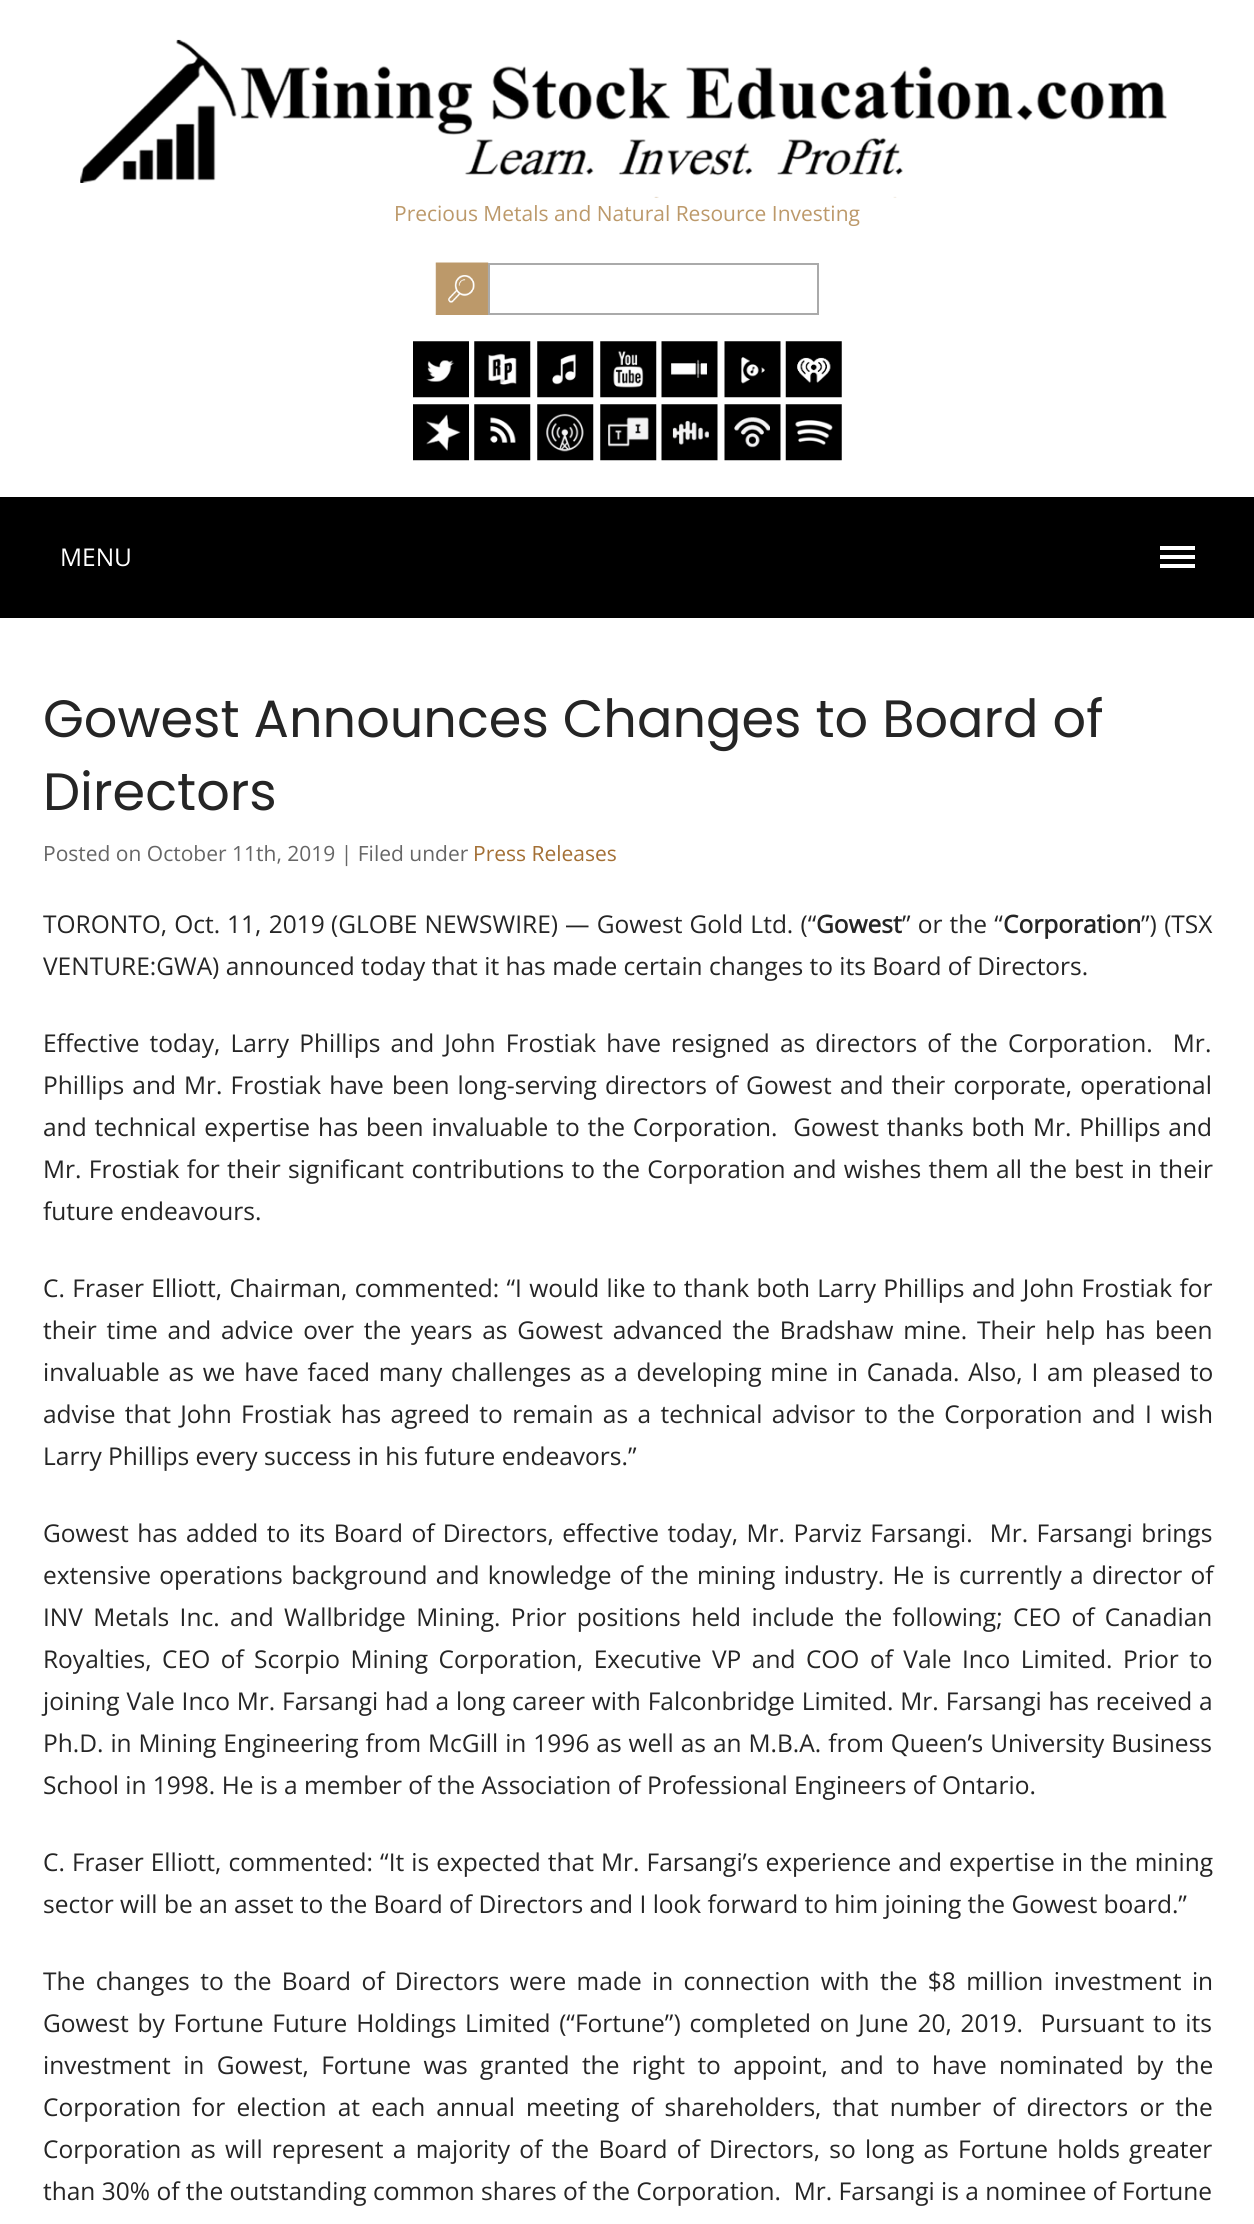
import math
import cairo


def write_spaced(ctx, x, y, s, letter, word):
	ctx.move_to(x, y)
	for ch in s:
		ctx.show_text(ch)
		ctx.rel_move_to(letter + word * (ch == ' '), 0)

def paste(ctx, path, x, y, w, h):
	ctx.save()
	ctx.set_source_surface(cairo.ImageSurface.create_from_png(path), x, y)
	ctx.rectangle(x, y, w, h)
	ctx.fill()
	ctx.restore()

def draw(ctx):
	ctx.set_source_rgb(1, 1, 1)
	ctx.paint()
	paste(ctx, 'media/1.png', 80, 39, 1087, 159)
	ctx.select_font_face('Open Sans')
	ctx.set_font_size(21)
	ctx.set_source_rgb(0.737, 0.6, 0.416)
	ctx.move_to(394, 221)
	ctx.show_text('Precious Metals and Natural Resource Investing')
	paste(ctx, 'media/2.png', 435, 262, 54, 53)
	ctx.rectangle(489, 264, 329, 50)
	ctx.set_source_rgb(0.667, 0.667, 0.667)
	ctx.stroke()
	paste(ctx, 'media/3.png', 413, 341, 56, 57)
	paste(ctx, 'media/4.png', 474, 341, 57, 57)
	paste(ctx, 'media/5.png', 537, 341, 57, 57)
	paste(ctx, 'media/6.png', 600, 341, 57, 57)
	paste(ctx, 'media/7.png', 661, 341, 57, 57)
	paste(ctx, 'media/8.png', 724, 341, 57, 57)
	paste(ctx, 'media/9.png', 785, 341, 57, 57)
	paste(ctx, 'media/10.png', 413, 404, 56, 57)
	paste(ctx, 'media/11.png', 474, 404, 57, 57)
	paste(ctx, 'media/12.png', 537, 404, 57, 57)
	paste(ctx, 'media/13.png', 600, 404, 57, 57)
	paste(ctx, 'media/14.png', 661, 404, 57, 57)
	paste(ctx, 'media/15.png', 724, 404, 57, 57)
	paste(ctx, 'media/16.png', 785, 404, 57, 57)
	ctx.set_source_rgb(0, 0, 0)
	ctx.rectangle(0, 497, 1254, 121)
	ctx.fill()
	ctx.set_font_size(24.5)
	ctx.set_source_rgb(1, 1, 1)
	ctx.move_to(60, 566)
	ctx.show_text('MENU')
	ctx.rectangle(1160, 546, 35, 4)
	ctx.rectangle(1160, 555, 35, 4)
	ctx.rectangle(1160, 564, 35, 4)
	ctx.fill()
	ctx.select_font_face('Poppins')
	ctx.set_font_size(52.5)
	ctx.set_source_rgb(0.145, 0.145, 0.145)
	ctx.move_to(43, 737)
	ctx.show_text('Gowest Announces Changes to Board of')
	ctx.move_to(43, 810)
	ctx.show_text('Directors')
	ctx.select_font_face('Open Sans')
	ctx.set_font_size(21)
	ctx.set_source_rgb(0.4, 0.4, 0.4)
	ctx.move_to(43, 861)
	ctx.show_text('Posted on October 11th, 2019 | Filed under')
	ctx.set_source_rgb(0.639, 0.435, 0.204)
	ctx.move_to(473, 861)
	ctx.show_text('Press Releases')
	ctx.set_font_size(24.5)
	ctx.set_source_rgb(0.145, 0.145, 0.145)
	write_spaced(ctx, 43, 933, 'TORONTO, Oct.', 0, 0.75)
	write_spaced(ctx, 227, 933, '11, 2019', 0, 1)
	write_spaced(ctx, 331, 933, '(GLOBE NEWSWIRE) — Gowest Gold Ltd. (“', 0, 0.75)
	ctx.select_font_face('Open Sans', cairo.FONT_SLANT_NORMAL, cairo.FONT_WEIGHT_BOLD)
	ctx.move_to(816, 933)
	ctx.show_text('Gowest')
	ctx.select_font_face('Open Sans')
	write_spaced(ctx, 902, 933, '” or the “', 0, 0.75)
	ctx.select_font_face('Open Sans', cairo.FONT_SLANT_NORMAL, cairo.FONT_WEIGHT_BOLD)
	ctx.move_to(1003, 933)
	ctx.show_text('Corporation')
	ctx.select_font_face('Open Sans')
	write_spaced(ctx, 1141, 933, '”) (TSX', 0, 1)
	ctx.move_to(43, 975)
	ctx.show_text('VENTURE:GWA) announced today that it has made certain changes to its Board of Directors.')
	write_spaced(ctx, 43, 1052, 'Effective today, Larry Phillips and John Frostiak have resigned as directors of the Corporation.  Mr.', 0, 3.75)
	write_spaced(ctx, 43, 1094, 'Phillips and Mr. Frostiak have been long-serving directors of Gowest and their corporate, operational', 0, 1.75)
	write_spaced(ctx, 43, 1136, 'and technical expertise has been invaluable to the Corporation.  Gowest thanks both Mr. Phillips and', 0, 1.5)
	write_spaced(ctx, 43, 1178, 'Mr. Frostiak for their significant contributions to the Corporation and wishes them all the best in their', 0, 1)
	ctx.move_to(43, 1220)
	ctx.show_text('future endeavours.')
	write_spaced(ctx, 43, 1297, 'C. Fraser Elliott, Chairman, commented: “I would like to thank both Larry Phillips and John Frostiak for', 0, 1)
	write_spaced(ctx, 43, 1339, 'their time and advice over the years as Gowest advanced the Bradshaw mine. Their help has been', 0, 3.4)
	write_spaced(ctx, 43, 1381, 'invaluable as we have faced many challenges as a developing mine in Canada. Also, I am pleased to', 0, 2.4)
	write_spaced(ctx, 43, 1423, 'advise that John Frostiak has agreed to remain as a technical advisor to the Corporation and I wish', 0, 3)
	ctx.move_to(43, 1465)
	ctx.show_text('Larry Phillips every success in his future endeavors.”')
	write_spaced(ctx, 43, 1542, 'Gowest has added to its Board of Directors, effective today, Mr. Parviz Farsangi.  Mr. Farsangi brings', 0, 2.1)
	write_spaced(ctx, 43, 1584, 'extensive operations background and knowledge of the mining industry. He is currently a director of', 0, 2)
	write_spaced(ctx, 43, 1626, 'INV Metals Inc. and Wallbridge Mining. Prior positions held include the following; CEO of Canadian', 0, 4)
	write_spaced(ctx, 43, 1668, 'Royalties, CEO of Scorpio Mining Corporation, Executive VP and COO of Vale Inco Limited. Prior to', 0, 4.1)
	write_spaced(ctx, 43, 1710, 'joining Vale Inco Mr. Farsangi had a long career with Falconbridge Limited. Mr. Farsangi has received a', 0, 0.5)
	write_spaced(ctx, 43, 1752, 'Ph.D. in Mining Engineering from McGill in 1996 as well as an M.B.A. from Queen’s University Business', 0, 0.6)
	ctx.move_to(43, 1794)
	ctx.show_text('School in 1998. He is a member of the Association of Professional Engineers of Ontario.')
	write_spaced(ctx, 43, 1871, 'C. Fraser Elliott, commented: “It is expected that Mr. Farsangi’s experience and expertise in the mining', 0, 0.7)
	ctx.move_to(43, 1913)
	ctx.show_text('sector will be an asset to the Board of Directors and I look forward to him joining the Gowest board.”')
	write_spaced(ctx, 43, 1990, 'The changes to the Board of Directors were made in connection with the $8 million investment in', 0, 4)
	write_spaced(ctx, 43, 2032, 'Gowest by Fortune Future Holdings Limited (“Fortune”) completed on June 20, 2019.  Pursuant to its', 0, 2.4)
	write_spaced(ctx, 43, 2074, 'investment in Gowest, Fortune was granted the right to appoint, and to have nominated by the', 0, 6)
	write_spaced(ctx, 43, 2116, 'Corporation for election at each annual meeting of shareholders, that number of directors or the', 0, 4.75)
	write_spaced(ctx, 43, 2158, 'Corporation as will represent a majority of the Board of Directors, so long as Fortune holds greater', 0, 2.9)
	ctx.move_to(43, 2200)
	ctx.show_text('than 30% of the outstanding common shares of the Corporation.  Mr. Farsangi is a nominee of Fortune')


surface = cairo.ImageSurface(cairo.FORMAT_RGB24, 1254, 2224)
ctx = cairo.Context(surface)
options = cairo.FontOptions()
options.set_hint_metrics(cairo.HINT_METRICS_OFF)
options.set_hint_style(cairo.HINT_STYLE_NONE)
ctx.set_font_options(options)
ctx.set_miter_limit(4)
draw(ctx)
surface.write_to_png('image.png')
